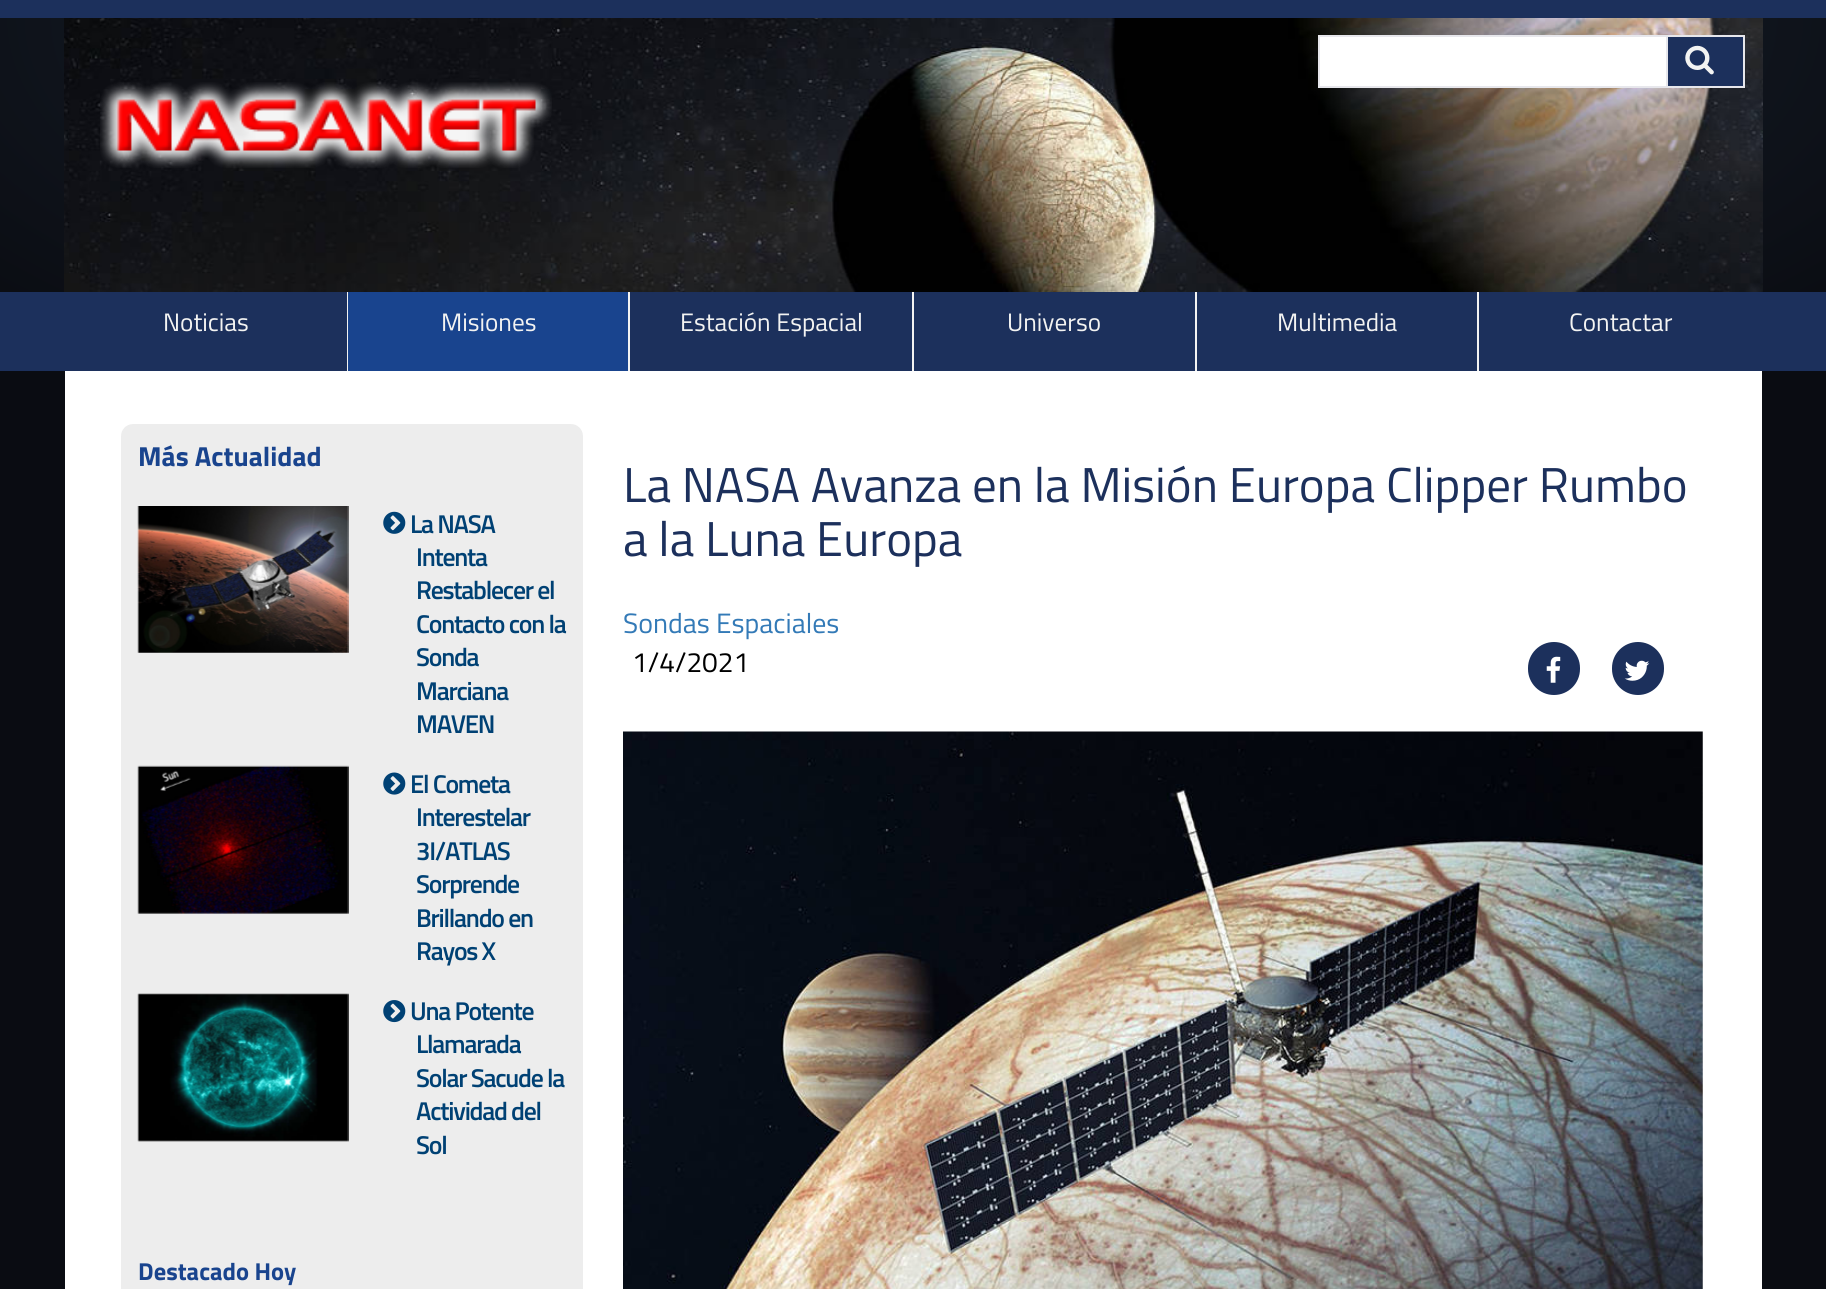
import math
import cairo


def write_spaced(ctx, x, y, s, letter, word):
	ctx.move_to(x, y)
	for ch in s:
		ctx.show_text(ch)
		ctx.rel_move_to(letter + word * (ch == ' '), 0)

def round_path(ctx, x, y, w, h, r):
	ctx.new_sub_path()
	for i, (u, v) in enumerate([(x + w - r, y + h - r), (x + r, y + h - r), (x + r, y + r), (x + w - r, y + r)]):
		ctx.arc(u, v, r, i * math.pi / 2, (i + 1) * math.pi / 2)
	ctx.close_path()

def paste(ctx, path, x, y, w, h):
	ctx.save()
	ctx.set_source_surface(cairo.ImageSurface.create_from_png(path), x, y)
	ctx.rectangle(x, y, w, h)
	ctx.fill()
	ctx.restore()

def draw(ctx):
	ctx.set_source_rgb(0.11, 0.188, 0.361)
	ctx.paint()
	gradient = cairo.RadialGradient(0, 0, 0, 0, 0, 1)
	gradient.set_matrix(cairo.Matrix(1 / 1292, 0, 0, 1 / 500, -1 * 914 / 1292, -1 * 18 / 500))
	gradient.add_color_stop_rgba(0, 0.106, 0.153, 0.208, 1)
	gradient.add_color_stop_rgba(1, 0.035, 0.039, 0.059, 1)
	ctx.set_source(gradient)
	ctx.rectangle(0, 18, 1826, 274)
	ctx.fill()
	paste(ctx, 'media/1.png', 64, 18, 1699, 274)
	ctx.set_source_rgb(1, 1, 1)
	ctx.rectangle(1319, 36, 348, 51)
	ctx.fill_preserve()
	ctx.set_source_rgb(0.906, 0.906, 0.922)
	ctx.stroke()
	ctx.set_source_rgb(0.11, 0.188, 0.361)
	ctx.rectangle(1668, 37, 75, 49)
	ctx.fill()
	ctx.set_source_rgb(0.906, 0.906, 0.922)
	ctx.rectangle(1668, 35, 77, 2)
	ctx.rectangle(1743, 35, 2, 53)
	ctx.rectangle(1668, 86, 77, 2)
	ctx.fill()
	paste(ctx, 'media/2.png', 1685, 45, 29, 30)
	paste(ctx, 'media/3.png', 100, 82, 452, 86)
	ctx.set_source_rgb(0.953, 0.953, 0.949)
	ctx.rectangle(347, 292, 1, 79)
	ctx.fill()
	ctx.select_font_face('Titillium Web')
	ctx.set_font_size(25.25)
	ctx.move_to(163, 331)
	ctx.show_text('Noticias')
	ctx.rectangle(628, 292, 2, 79)
	ctx.fill()
	ctx.set_source_rgb(0.098, 0.267, 0.557)
	ctx.rectangle(348, 292, 280, 79)
	ctx.fill()
	ctx.set_source_rgb(0.953, 0.953, 0.949)
	ctx.move_to(441, 331)
	ctx.show_text('Misiones')
	ctx.rectangle(912, 292, 2, 79)
	ctx.fill()
	ctx.move_to(680, 331)
	ctx.show_text('Estación Espacial')
	ctx.rectangle(1195, 292, 2, 79)
	ctx.fill()
	ctx.move_to(1007, 331)
	ctx.show_text('Universo')
	ctx.rectangle(1477, 292, 2, 79)
	ctx.fill()
	ctx.move_to(1277, 331)
	ctx.show_text('Multimedia')
	ctx.move_to(1569, 331)
	ctx.show_text('Contactar')
	gradient = cairo.RadialGradient(0, 0, 0, 0, 0, 1)
	gradient.set_matrix(cairo.Matrix(1 / 1292, 0, 0, 1 / 10924, -1 * 914 / 1292, -1 * 8096 / 10924))
	gradient.add_color_stop_rgba(0.1, 0.106, 0.153, 0.208, 1)
	gradient.add_color_stop_rgba(0.7, 0.039, 0.047, 0.071, 1)
	ctx.set_source(gradient)
	ctx.rectangle(0, 371, 1826, 918)
	ctx.fill()
	ctx.set_source_rgb(1, 1, 1)
	ctx.rectangle(65, 371, 1697, 918)
	ctx.fill()
	ctx.set_source_rgb(0.929, 0.929, 0.929)
	round_path(ctx, 130, 433, 444, 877, 3)
	ctx.fill_preserve()
	ctx.set_line_width(18)
	ctx.stroke()
	ctx.select_font_face('Titillium Web', cairo.FONT_SLANT_NORMAL, cairo.FONT_WEIGHT_BOLD)
	ctx.set_font_size(27.5)
	ctx.set_source_rgb(0.098, 0.267, 0.557)
	ctx.move_to(138, 466)
	ctx.show_text('Más Actualidad')
	paste(ctx, 'media/4.png', 137, 506, 212, 147)
	paste(ctx, 'media/5.png', 383, 511, 23, 23)
	ctx.select_font_face('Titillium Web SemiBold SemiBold')
	ctx.set_font_size(25.75)
	ctx.set_source_rgb(0, 0.255, 0.455)
	for x, y, s in [
		(410, 533, 'La NASA'),
		(416, 566, 'Intenta'),
		(416, 599, 'Restablecer el'),
		(416, 633, 'Contacto con la'),
		(416, 666, 'Sonda'),
		(416, 700, 'Marciana'),
		(416, 733, 'MAVEN'),
	]:
		write_spaced(ctx, x, y, s, -1.25, 0)
	paste(ctx, 'media/6.png', 137, 765, 212, 149)
	paste(ctx, 'media/7.png', 383, 772, 23, 23)
	for x, y, s in [
		(410, 793, 'El Cometa'),
		(416, 826, 'Interestelar'),
		(416, 860, '3I/ATLAS'),
		(416, 893, 'Sorprende'),
		(416, 927, 'Brillando en'),
		(416, 960, 'Rayos X'),
	]:
		write_spaced(ctx, x, y, s, -1.25, 0)
	paste(ctx, 'media/8.png', 137, 993, 212, 149)
	paste(ctx, 'media/9.png', 383, 1000, 23, 23)
	for x, y, s in [
		(410, 1020, 'Una Potente'),
		(416, 1053, 'Llamarada'),
		(416, 1087, 'Solar Sacude la'),
		(416, 1120, 'Actividad del'),
		(416, 1154, 'Sol'),
	]:
		write_spaced(ctx, x, y, s, -1.25, 0)
	ctx.select_font_face('Titillium Web', cairo.FONT_SLANT_NORMAL, cairo.FONT_WEIGHT_BOLD)
	ctx.set_font_size(24.5)
	ctx.set_source_rgb(0.098, 0.267, 0.557)
	ctx.move_to(138, 1280)
	ctx.show_text('Destacado Hoy')
	ctx.select_font_face('Titillium Web')
	ctx.set_font_size(49)
	ctx.set_source_rgb(0.11, 0.188, 0.361)
	ctx.move_to(623, 502)
	ctx.show_text('La NASA Avanza en la Misión Europa Clipper Rumbo')
	ctx.move_to(623, 556)
	ctx.show_text('a la Luna Europa')
	ctx.set_font_size(28)
	ctx.set_source_rgb(0.2, 0.478, 0.718)
	ctx.move_to(623, 633)
	ctx.show_text('Sondas Espaciales')
	ctx.set_source_rgb(0, 0, 0)
	ctx.move_to(632, 672)
	ctx.show_text('1/4/2021')
	ctx.set_source_rgb(0.11, 0.188, 0.361)
	round_path(ctx, 1530, 644, 48, 49, 24)
	ctx.fill_preserve()
	ctx.set_line_width(4)
	ctx.stroke()
	paste(ctx, 'media/10.png', 1546, 656, 15, 27)
	round_path(ctx, 1614, 644, 48, 49, 24)
	ctx.fill_preserve()
	ctx.stroke()
	paste(ctx, 'media/11.png', 1624, 660, 26, 21)
	paste(ctx, 'media/12.png', 623, 731, 1080, 558)


surface = cairo.ImageSurface(cairo.FORMAT_RGB24, 1826, 1289)
ctx = cairo.Context(surface)
options = cairo.FontOptions()
options.set_hint_metrics(cairo.HINT_METRICS_OFF)
options.set_hint_style(cairo.HINT_STYLE_NONE)
ctx.set_font_options(options)
ctx.set_miter_limit(4)
draw(ctx)
surface.write_to_png('image.png')
